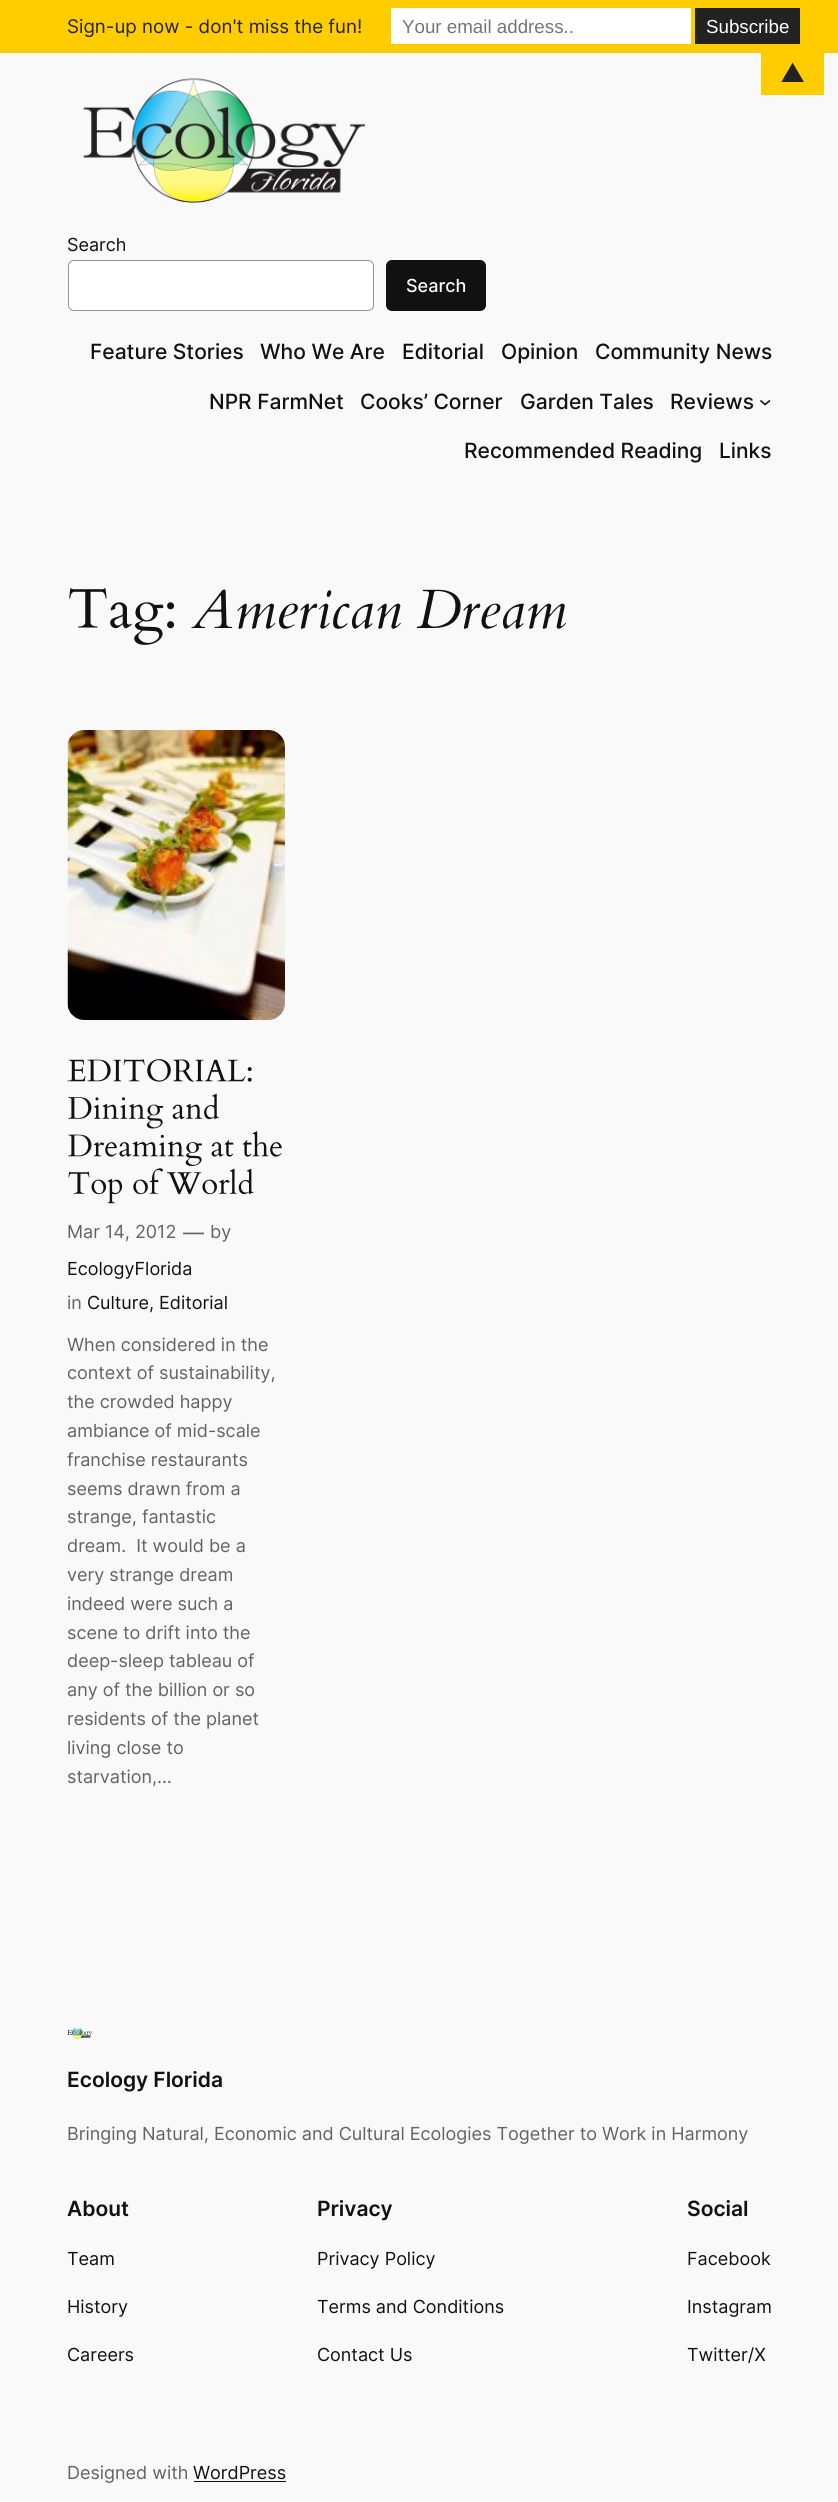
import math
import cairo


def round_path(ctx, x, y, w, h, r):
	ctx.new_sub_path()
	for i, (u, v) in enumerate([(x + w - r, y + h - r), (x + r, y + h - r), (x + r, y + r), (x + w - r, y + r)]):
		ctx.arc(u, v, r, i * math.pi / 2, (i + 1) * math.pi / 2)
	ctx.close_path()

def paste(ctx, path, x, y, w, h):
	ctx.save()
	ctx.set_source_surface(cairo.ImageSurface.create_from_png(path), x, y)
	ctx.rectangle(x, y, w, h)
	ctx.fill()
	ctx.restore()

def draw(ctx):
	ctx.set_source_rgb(0.976, 0.976, 0.976)
	ctx.paint()
	ctx.set_source_rgb(1, 0.8, 0)
	ctx.rectangle(0, 0, 838, 53)
	ctx.fill()
	ctx.select_font_face('Inter')
	ctx.set_font_size(18.75)
	ctx.set_source_rgb(0.133, 0.133, 0.133)
	ctx.move_to(67, 33)
	ctx.show_text('Sign-up now - don\'t miss the fun!')
	ctx.set_source_rgb(1, 1, 1)
	ctx.rectangle(391, 8, 300, 36)
	ctx.fill()
	ctx.select_font_face('Liberation Sans')
	ctx.set_source_rgb(0.459, 0.459, 0.459)
	ctx.move_to(402, 33)
	ctx.show_text('Your email address..')
	ctx.set_source_rgb(0.133, 0.133, 0.133)
	ctx.rectangle(695, 8, 105, 36)
	ctx.fill()
	ctx.set_source_rgb(1, 1, 1)
	ctx.move_to(706, 33)
	ctx.show_text('Subscribe')
	ctx.set_source_rgb(1, 0.8, 0)
	ctx.rectangle(761, 53, 63, 42)
	ctx.fill()
	ctx.select_font_face('Inter')
	ctx.set_font_size(25)
	ctx.set_source_rgb(0.133, 0.133, 0.133)
	ctx.move_to(780, 82)
	ctx.show_text('▲')
	paste(ctx, 'media/1.png', 83, 78, 282, 125)
	ctx.set_font_size(18)
	ctx.set_source_rgb(0.067, 0.067, 0.067)
	ctx.move_to(67, 251)
	ctx.show_text('Search')
	ctx.set_source_rgb(1, 1, 1)
	round_path(ctx, 68.5, 260.5, 305, 50, 5.5)
	ctx.fill_preserve()
	ctx.set_source_rgb(0.58, 0.58, 0.58)
	ctx.set_line_width(1)
	ctx.stroke()
	ctx.set_source_rgb(0.067, 0.067, 0.067)
	round_path(ctx, 386, 260, 100, 51, 6)
	ctx.fill()
	ctx.select_font_face('Inter Medium')
	ctx.set_source_rgb(0.976, 0.976, 0.976)
	ctx.move_to(406, 292)
	ctx.show_text('Search')
	ctx.set_font_size(21)
	ctx.set_source_rgb(0.067, 0.067, 0.067)
	for x, y, s in [
		(90, 359, 'Feature Stories'),
		(260, 359, 'Who We Are'),
		(402, 359, 'Editorial'),
		(501, 359, 'Opinion'),
		(595, 359, 'Community News'),
		(209, 409, 'NPR FarmNet'),
		(360, 409, 'Cooks’ Corner'),
		(520, 409, 'Garden Tales'),
		(670, 409, 'Reviews'),
	]:
		ctx.move_to(x, y)
		ctx.show_text(s)
	ctx.new_path()
	ctx.move_to(760.5, 400.5)
	ctx.line_to(765, 404.5)
	ctx.line_to(770, 400.5)
	ctx.set_line_width(1.6)
	ctx.stroke()
	ctx.move_to(464, 458)
	ctx.show_text('Recommended Reading')
	ctx.move_to(719, 458)
	ctx.show_text('Links')
	paste(ctx, 'media/2.png', 69, 588, 106, 57)
	ctx.select_font_face('Cardo', cairo.FONT_SLANT_ITALIC)
	ctx.set_font_size(55.5)
	ctx.move_to(192, 628)
	ctx.show_text('American Dream')
	paste(ctx, 'media/3.png', 67, 730, 218, 290)
	paste(ctx, 'media/4.png', 67, 1059, 185, 23)
	paste(ctx, 'media/5.png', 68, 1093, 151, 36)
	paste(ctx, 'media/6.png', 68, 1131, 214, 35)
	paste(ctx, 'media/7.png', 68, 1168, 186, 36)
	ctx.select_font_face('Inter')
	ctx.set_font_size(18)
	ctx.set_source_rgb(0.388, 0.388, 0.388)
	ctx.move_to(67, 1238)
	ctx.show_text('Mar 14, 2012')
	ctx.set_font_size(21)
	ctx.move_to(183, 1240)
	ctx.show_text('—')
	ctx.set_font_size(18)
	ctx.move_to(210, 1238)
	ctx.show_text('by')
	ctx.set_source_rgb(0.067, 0.067, 0.067)
	ctx.move_to(67, 1275)
	ctx.show_text('EcologyFlorida')
	ctx.set_source_rgb(0.388, 0.388, 0.388)
	ctx.move_to(67, 1309)
	ctx.show_text('in')
	ctx.set_source_rgb(0.067, 0.067, 0.067)
	ctx.move_to(87, 1309)
	ctx.show_text('Culture, Editorial')
	ctx.set_source_rgb(0.388, 0.388, 0.388)
	for x, y, s in [
		(67, 1351, 'When considered in the'),
		(67, 1379, 'context of sustainability,'),
		(67, 1408, 'the crowded happy'),
		(67, 1437, 'ambiance of mid-scale'),
		(67, 1466, 'franchise restaurants'),
		(67, 1495, 'seems drawn from a'),
		(67, 1523, 'strange, fantastic'),
		(67, 1552, 'dream.  It would be a'),
		(67, 1581, 'very strange dream'),
		(67, 1610, 'indeed were such a'),
		(67, 1639, 'scene to drift into the'),
		(67, 1667, 'deep-sleep tableau of'),
		(67, 1696, 'any of the billion or so'),
		(67, 1725, 'residents of the planet'),
		(67, 1754, 'living close to'),
		(67, 1783, 'starvation,…'),
	]:
		ctx.move_to(x, y)
		ctx.show_text(s)
	paste(ctx, 'media/8.png', 67, 2027, 26, 12)
	ctx.select_font_face('Inter SemiBold')
	ctx.set_font_size(21)
	ctx.set_source_rgb(0.067, 0.067, 0.067)
	ctx.move_to(67, 2087)
	ctx.show_text('Ecology Florida')
	ctx.select_font_face('Inter')
	ctx.set_font_size(18)
	ctx.set_source_rgb(0.388, 0.388, 0.388)
	ctx.move_to(67, 2140)
	ctx.show_text('Bringing Natural, Economic and Cultural Ecologies Together to Work in Harmony')
	ctx.select_font_face('Inter SemiBold')
	ctx.set_font_size(21)
	ctx.set_source_rgb(0.067, 0.067, 0.067)
	ctx.move_to(67, 2216)
	ctx.show_text('About')
	ctx.select_font_face('Inter')
	ctx.set_font_size(18)
	for x, y, s in [
		(67, 2265, 'Team'),
		(67, 2313, 'History'),
		(67, 2361, 'Careers'),
	]:
		ctx.move_to(x, y)
		ctx.show_text(s)
	ctx.select_font_face('Inter SemiBold')
	ctx.set_font_size(21)
	ctx.move_to(317, 2216)
	ctx.show_text('Privacy')
	ctx.select_font_face('Inter')
	ctx.set_font_size(18)
	for x, y, s in [
		(317, 2265, 'Privacy Policy'),
		(317, 2313, 'Terms and Conditions'),
		(317, 2361, 'Contact Us'),
	]:
		ctx.move_to(x, y)
		ctx.show_text(s)
	ctx.select_font_face('Inter SemiBold')
	ctx.set_font_size(21)
	ctx.move_to(687, 2216)
	ctx.show_text('Social')
	ctx.select_font_face('Inter')
	ctx.set_font_size(18)
	for x, y, s in [
		(687, 2265, 'Facebook'),
		(687, 2313, 'Instagram'),
		(687, 2361, 'Twitter/X'),
	]:
		ctx.move_to(x, y)
		ctx.show_text(s)
	ctx.set_source_rgb(0.388, 0.388, 0.388)
	ctx.move_to(67, 2479)
	ctx.show_text('Designed with')
	ctx.set_source_rgb(0.067, 0.067, 0.067)
	ctx.move_to(193, 2479)
	ctx.show_text('WordPress')
	ctx.rectangle(194, 2481, 92, 1)
	ctx.fill()


surface = cairo.ImageSurface(cairo.FORMAT_RGB24, 838, 2502)
ctx = cairo.Context(surface)
options = cairo.FontOptions()
options.set_hint_metrics(cairo.HINT_METRICS_OFF)
options.set_hint_style(cairo.HINT_STYLE_NONE)
ctx.set_font_options(options)
ctx.set_miter_limit(4)
draw(ctx)
surface.write_to_png('image.png')
